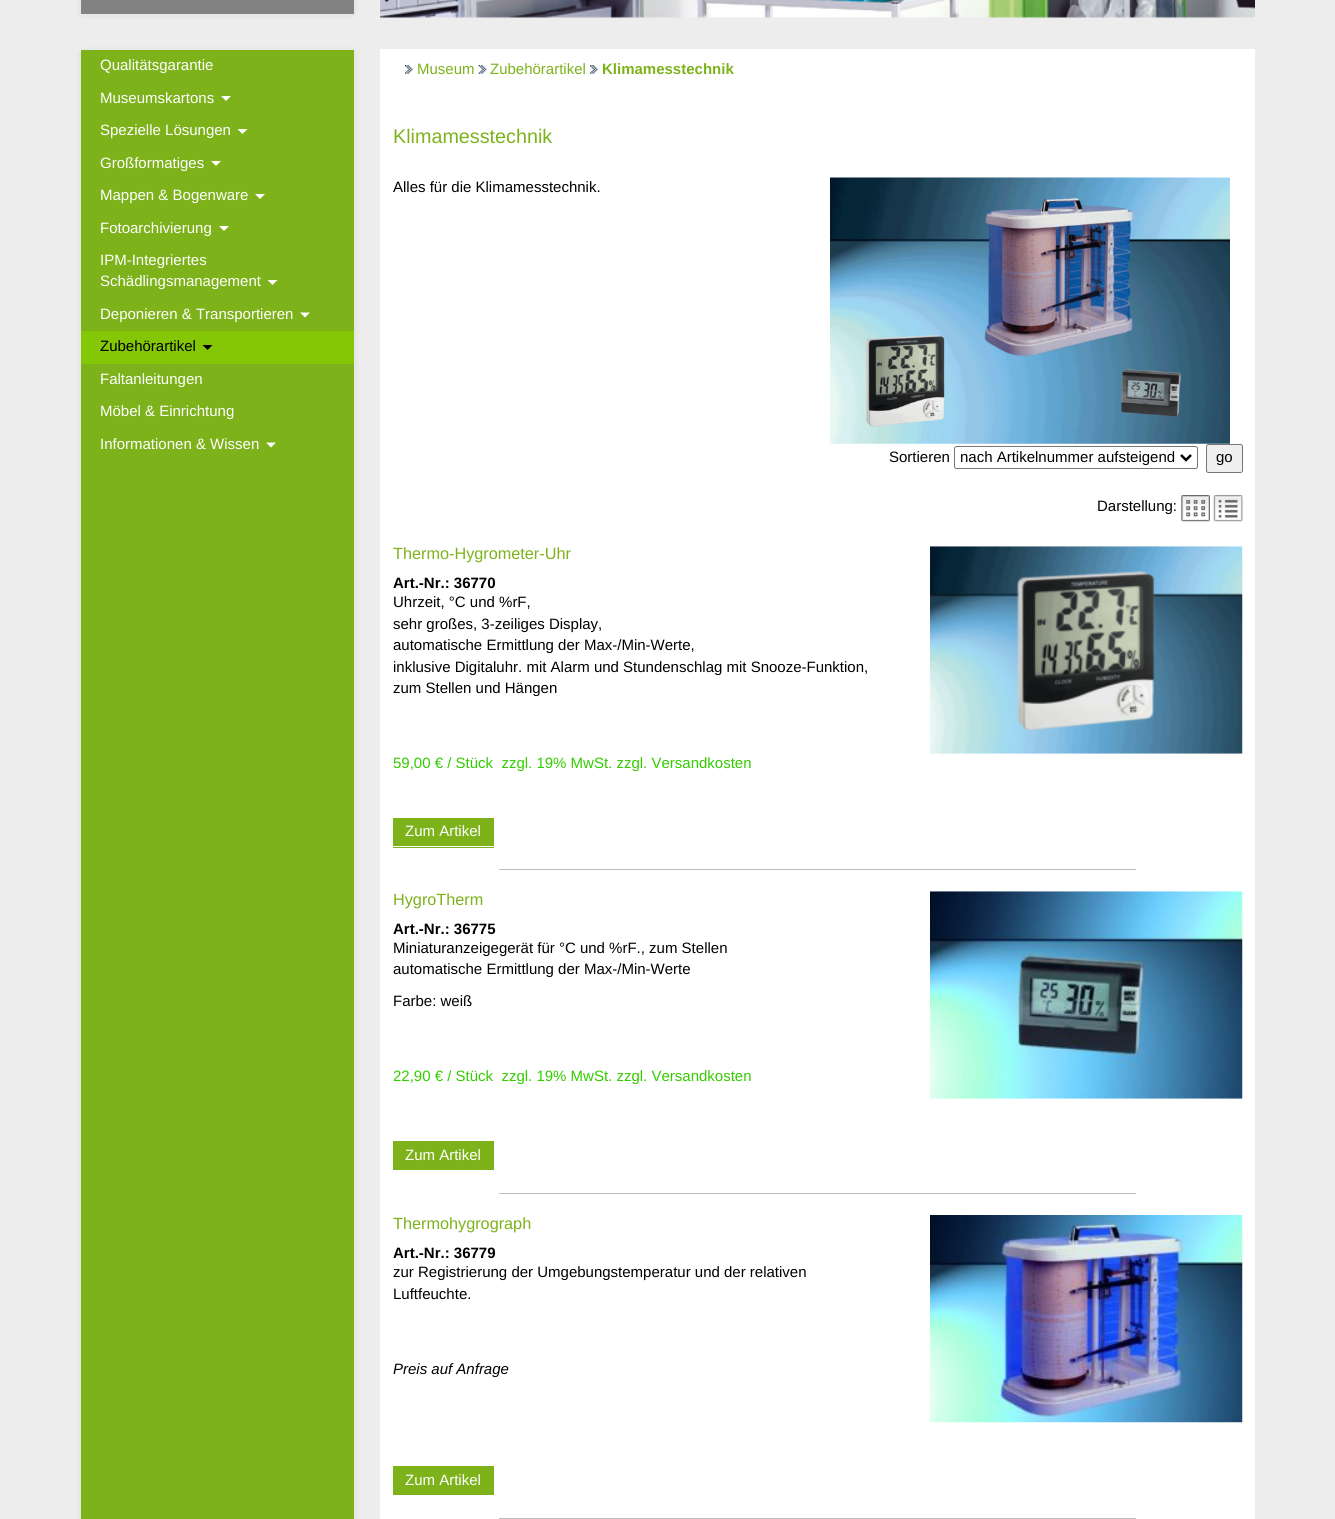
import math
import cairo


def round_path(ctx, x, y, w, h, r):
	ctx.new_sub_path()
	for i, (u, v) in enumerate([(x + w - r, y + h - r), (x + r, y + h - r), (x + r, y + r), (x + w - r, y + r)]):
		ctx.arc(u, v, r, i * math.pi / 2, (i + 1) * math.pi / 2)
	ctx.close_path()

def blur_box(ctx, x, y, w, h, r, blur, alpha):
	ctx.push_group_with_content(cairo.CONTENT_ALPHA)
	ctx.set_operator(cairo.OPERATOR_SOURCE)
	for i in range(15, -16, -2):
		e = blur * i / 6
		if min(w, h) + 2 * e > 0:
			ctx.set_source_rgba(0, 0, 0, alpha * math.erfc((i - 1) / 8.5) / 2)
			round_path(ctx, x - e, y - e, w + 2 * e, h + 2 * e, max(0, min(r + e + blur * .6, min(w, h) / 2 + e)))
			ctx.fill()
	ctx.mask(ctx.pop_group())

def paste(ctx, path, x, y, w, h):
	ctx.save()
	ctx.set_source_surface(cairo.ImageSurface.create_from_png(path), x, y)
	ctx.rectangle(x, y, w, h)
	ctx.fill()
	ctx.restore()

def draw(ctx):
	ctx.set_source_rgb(0.929, 0.929, 0.929)
	ctx.paint()
	ctx.set_source_rgb(0, 0, 0)
	blur_box(ctx, 80, -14, 275, 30, 5, 3, 0.07)
	round_path(ctx, 80.5, -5.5, 274, 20, 4.5)
	ctx.set_source_rgb(0.906, 0.906, 0.906)
	ctx.set_line_width(1)
	ctx.stroke()
	ctx.set_source_rgb(0.51, 0.51, 0.51)
	ctx.rectangle(81, 0, 273, 14)
	ctx.fill()
	paste(ctx, 'media/1.png', 380, 0, 875, 18)
	ctx.set_source_rgb(0, 0, 0)
	blur_box(ctx, 80, 50, 275, 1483, 5, 3, 0.07)
	round_path(ctx, 80.5, 49.5, 274, 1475, 4.5)
	ctx.set_source_rgb(0.906, 0.906, 0.906)
	ctx.stroke()
	ctx.set_source_rgb(0.49, 0.698, 0.106)
	ctx.rectangle(81, 50, 273, 1469)
	ctx.fill()
	ctx.select_font_face('Liberation Sans')
	ctx.set_font_size(15)
	ctx.set_source_rgb(1, 1, 1)
	ctx.move_to(100, 70)
	ctx.show_text('Qualitätsgarantie')
	ctx.move_to(100, 103)
	ctx.show_text('Museumskartons')
	ctx.new_path()
	ctx.move_to(221, 96)
	ctx.line_to(231, 96)
	ctx.line_to(226, 101)
	ctx.close_path()
	ctx.fill()
	ctx.move_to(100, 135)
	ctx.show_text('Spezielle Lösungen')
	ctx.new_path()
	ctx.move_to(237.5, 129)
	ctx.line_to(247.5, 129)
	ctx.line_to(242.5, 134)
	ctx.close_path()
	ctx.fill()
	ctx.move_to(100, 168)
	ctx.show_text('Großformatiges')
	ctx.new_path()
	ctx.move_to(211, 161)
	ctx.line_to(221, 161)
	ctx.line_to(216, 166)
	ctx.close_path()
	ctx.fill()
	ctx.move_to(100, 200)
	ctx.show_text('Mappen & Bogenware')
	ctx.new_path()
	ctx.move_to(255, 194)
	ctx.line_to(265, 194)
	ctx.line_to(260, 199)
	ctx.close_path()
	ctx.fill()
	ctx.move_to(100, 233)
	ctx.show_text('Fotoarchivierung')
	ctx.new_path()
	ctx.move_to(219, 226)
	ctx.line_to(229, 226)
	ctx.line_to(224, 231)
	ctx.close_path()
	ctx.fill()
	ctx.move_to(100, 265)
	ctx.show_text('IPM-Integriertes')
	ctx.move_to(100, 286)
	ctx.show_text('Schädlingsmanagement')
	ctx.new_path()
	ctx.move_to(267.5, 280)
	ctx.line_to(277.5, 280)
	ctx.line_to(272.5, 285)
	ctx.close_path()
	ctx.fill()
	ctx.move_to(100, 319)
	ctx.show_text('Deponieren & Transportieren')
	ctx.new_path()
	ctx.move_to(300, 312.5)
	ctx.line_to(310, 312.5)
	ctx.line_to(305, 317.5)
	ctx.close_path()
	ctx.fill()
	ctx.set_source_rgb(0.514, 0.78, 0.024)
	ctx.rectangle(81, 331, 273, 33)
	ctx.fill()
	ctx.set_source_rgb(0, 0, 0)
	ctx.move_to(100, 351)
	ctx.show_text('Zubehörartikel')
	ctx.new_path()
	ctx.move_to(202.5, 345)
	ctx.line_to(212.5, 345)
	ctx.line_to(207.5, 350)
	ctx.close_path()
	ctx.fill()
	ctx.set_source_rgb(1, 1, 1)
	for x, y, s in [
		(100, 384, 'Faltanleitungen'),
		(100, 416, 'Möbel & Einrichtung'),
		(100, 449, 'Informationen & Wissen'),
	]:
		ctx.move_to(x, y)
		ctx.show_text(s)
	ctx.new_path()
	ctx.move_to(266, 442.5)
	ctx.line_to(276, 442.5)
	ctx.line_to(271, 447.5)
	ctx.close_path()
	ctx.fill()
	ctx.rectangle(380, 49, 875, 1470)
	ctx.fill()
	paste(ctx, 'media/2.png', 405, 65, 8, 9)
	ctx.set_source_rgb(0.49, 0.698, 0.106)
	ctx.move_to(417, 74)
	ctx.show_text('Museum')
	paste(ctx, 'media/3.png', 478, 65, 9, 9)
	ctx.move_to(490, 74)
	ctx.show_text('Zubehörartikel')
	paste(ctx, 'media/2.png', 590, 65, 8, 9)
	ctx.select_font_face('Liberation Sans', cairo.FONT_SLANT_NORMAL, cairo.FONT_WEIGHT_BOLD)
	ctx.move_to(602, 74)
	ctx.show_text('Klimamesstechnik')
	ctx.select_font_face('Liberation Sans')
	ctx.set_font_size(19.75)
	ctx.move_to(393, 143)
	ctx.show_text('Klimamesstechnik')
	ctx.set_font_size(15)
	ctx.set_source_rgb(0, 0, 0)
	ctx.move_to(393, 192)
	ctx.show_text('Alles für die Klimamesstechnik.')
	paste(ctx, 'media/4.png', 830, 177, 400, 267)
	ctx.move_to(889, 462)
	ctx.show_text('Sortieren')
	round_path(ctx, 954.5, 446.5, 243, 22, 2)
	ctx.set_source_rgb(0.463, 0.463, 0.463)
	ctx.stroke()
	ctx.new_path()
	ctx.move_to(1181, 455)
	ctx.line_to(1186, 460)
	ctx.line_to(1191, 455)
	ctx.set_source_rgb(0, 0, 0)
	ctx.set_line_width(2.5)
	ctx.stroke()
	ctx.move_to(960, 462)
	ctx.show_text('nach Artikelnummer aufsteigend')
	ctx.set_source_rgb(0.937, 0.937, 0.937)
	round_path(ctx, 1206.5, 444.5, 36, 28, 2)
	ctx.fill_preserve()
	ctx.set_source_rgb(0.463, 0.463, 0.463)
	ctx.set_line_width(1)
	ctx.stroke()
	ctx.set_source_rgb(0, 0, 0)
	ctx.move_to(1216, 462)
	ctx.show_text('go')
	ctx.move_to(1097, 511)
	ctx.show_text('Darstellung:')
	paste(ctx, 'media/5.png', 1181, 495, 29, 27)
	paste(ctx, 'media/6.png', 1213, 495, 30, 27)
	ctx.set_font_size(16.25)
	ctx.set_source_rgb(0.49, 0.698, 0.106)
	ctx.move_to(393, 559)
	ctx.show_text('Thermo-Hygrometer-Uhr')
	ctx.select_font_face('Liberation Sans', cairo.FONT_SLANT_NORMAL, cairo.FONT_WEIGHT_BOLD)
	ctx.set_font_size(15)
	ctx.set_source_rgb(0, 0, 0)
	ctx.move_to(393, 588)
	ctx.show_text('Art.-Nr.: 36770')
	ctx.select_font_face('Liberation Sans')
	for x, y, s in [
		(393, 607, 'Uhrzeit, °C und %rF,'),
		(393, 629, 'sehr großes, 3-zeiliges Display,'),
		(393, 650, 'automatische Ermittlung der Max-/Min-Werte,'),
		(393, 672, 'inklusive Digitaluhr. mit Alarm und Stundenschlag mit Snooze-Funktion,'),
		(393, 693, 'zum Stellen und Hängen'),
	]:
		ctx.move_to(x, y)
		ctx.show_text(s)
	ctx.set_source_rgb(0.2, 0.8, 0)
	ctx.move_to(393, 768)
	ctx.show_text('59,00 € / Stück  zzgl. 19% MwSt. zzgl. Versandkosten')
	paste(ctx, 'media/7.png', 930, 546, 313, 208)
	ctx.set_source_rgb(0.49, 0.698, 0.106)
	ctx.rectangle(393, 818, 101, 30)
	ctx.fill()
	ctx.set_source_rgb(1, 1, 1)
	ctx.rectangle(393, 846, 101, 1)
	ctx.fill()
	ctx.move_to(405, 836)
	ctx.show_text('Zum Artikel')
	ctx.set_source_rgb(0.733, 0.733, 0.733)
	ctx.rectangle(499, 869, 637, 1)
	ctx.fill()
	ctx.set_font_size(16.25)
	ctx.set_source_rgb(0.49, 0.698, 0.106)
	ctx.move_to(393, 905)
	ctx.show_text('HygroTherm')
	ctx.select_font_face('Liberation Sans', cairo.FONT_SLANT_NORMAL, cairo.FONT_WEIGHT_BOLD)
	ctx.set_font_size(15)
	ctx.set_source_rgb(0, 0, 0)
	ctx.move_to(393, 934)
	ctx.show_text('Art.-Nr.: 36775')
	ctx.select_font_face('Liberation Sans')
	for x, y, s in [
		(393, 953, 'Miniaturanzeigegerät für °C und %rF., zum Stellen'),
		(393, 974, 'automatische Ermittlung der Max-/Min-Werte'),
		(393, 1006, 'Farbe: weiß'),
	]:
		ctx.move_to(x, y)
		ctx.show_text(s)
	ctx.set_source_rgb(0.2, 0.8, 0)
	ctx.move_to(393, 1081)
	ctx.show_text('22,90 € / Stück  zzgl. 19% MwSt. zzgl. Versandkosten')
	paste(ctx, 'media/8.png', 930, 891, 313, 208)
	ctx.set_source_rgb(0.49, 0.698, 0.106)
	ctx.rectangle(393, 1141, 101, 29)
	ctx.fill()
	ctx.set_source_rgb(1, 1, 1)
	ctx.move_to(405, 1160)
	ctx.show_text('Zum Artikel')
	ctx.set_source_rgb(0.733, 0.733, 0.733)
	ctx.rectangle(499, 1193, 637, 1)
	ctx.fill()
	ctx.set_font_size(16.25)
	ctx.set_source_rgb(0.49, 0.698, 0.106)
	ctx.move_to(393, 1229)
	ctx.show_text('Thermohygrograph')
	ctx.select_font_face('Liberation Sans', cairo.FONT_SLANT_NORMAL, cairo.FONT_WEIGHT_BOLD)
	ctx.set_font_size(15)
	ctx.set_source_rgb(0, 0, 0)
	ctx.move_to(393, 1258)
	ctx.show_text('Art.-Nr.: 36779')
	ctx.select_font_face('Liberation Sans')
	ctx.move_to(393, 1277)
	ctx.show_text('zur Registrierung der Umgebungstemperatur und der relativen')
	ctx.move_to(393, 1299)
	ctx.show_text('Luftfeuchte.')
	ctx.select_font_face('Liberation Sans', cairo.FONT_SLANT_ITALIC)
	ctx.move_to(393, 1374)
	ctx.show_text('Preis auf Anfrage')
	paste(ctx, 'media/9.png', 930, 1215, 313, 208)
	ctx.set_source_rgb(0.49, 0.698, 0.106)
	ctx.rectangle(393, 1466, 101, 29)
	ctx.fill()
	ctx.select_font_face('Liberation Sans')
	ctx.set_source_rgb(1, 1, 1)
	ctx.move_to(405, 1485)
	ctx.show_text('Zum Artikel')
	ctx.set_source_rgb(0.733, 0.733, 0.733)
	ctx.rectangle(499, 1518, 637, 1)
	ctx.fill()


surface = cairo.ImageSurface(cairo.FORMAT_RGB24, 1335, 1519)
ctx = cairo.Context(surface)
options = cairo.FontOptions()
options.set_hint_metrics(cairo.HINT_METRICS_OFF)
options.set_hint_style(cairo.HINT_STYLE_NONE)
ctx.set_font_options(options)
ctx.set_miter_limit(4)
draw(ctx)
surface.write_to_png('image.png')
